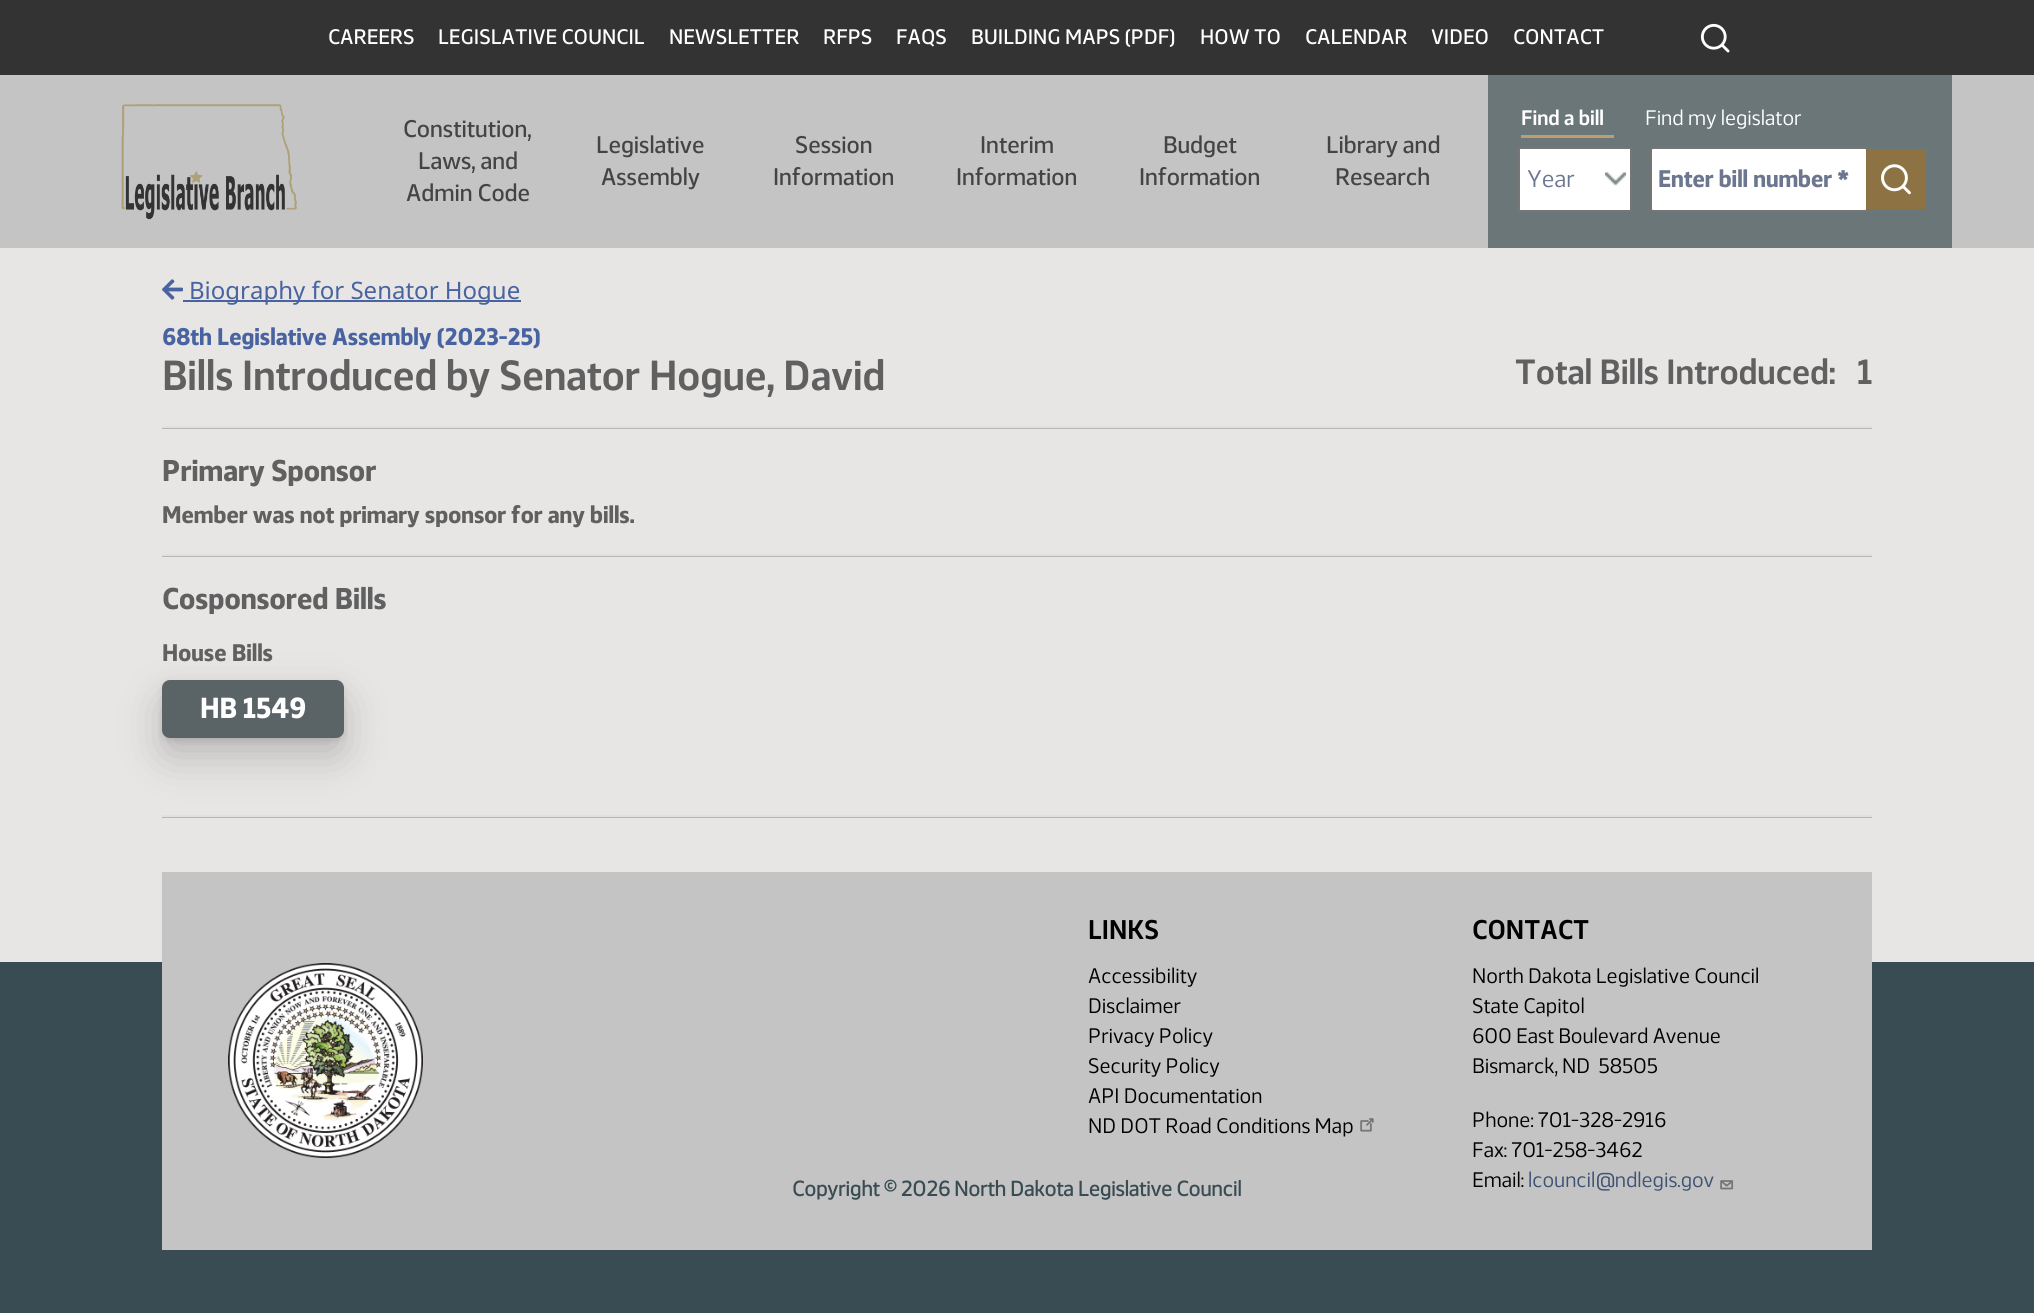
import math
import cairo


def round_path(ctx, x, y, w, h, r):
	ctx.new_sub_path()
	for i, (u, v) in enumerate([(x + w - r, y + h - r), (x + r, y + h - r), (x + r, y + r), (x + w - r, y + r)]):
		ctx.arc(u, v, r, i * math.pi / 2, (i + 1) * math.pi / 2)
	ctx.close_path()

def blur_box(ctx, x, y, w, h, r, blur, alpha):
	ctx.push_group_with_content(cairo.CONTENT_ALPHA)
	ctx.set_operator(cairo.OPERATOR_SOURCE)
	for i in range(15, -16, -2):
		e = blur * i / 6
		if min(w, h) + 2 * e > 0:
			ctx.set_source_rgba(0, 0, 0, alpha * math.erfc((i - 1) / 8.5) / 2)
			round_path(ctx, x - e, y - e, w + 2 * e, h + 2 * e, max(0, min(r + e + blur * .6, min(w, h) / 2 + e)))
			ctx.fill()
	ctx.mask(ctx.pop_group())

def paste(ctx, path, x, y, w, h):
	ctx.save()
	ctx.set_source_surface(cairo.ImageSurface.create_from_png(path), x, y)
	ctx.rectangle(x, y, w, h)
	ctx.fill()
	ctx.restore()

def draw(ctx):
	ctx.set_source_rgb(0.91, 0.902, 0.898)
	ctx.paint()
	ctx.set_source_rgb(0.2, 0.2, 0.2)
	ctx.rectangle(0, 0, 2034, 75)
	ctx.fill()
	ctx.select_font_face('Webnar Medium')
	ctx.set_font_size(21)
	ctx.set_source_rgb(1, 1, 1)
	for x, y, s in [
		(328, 44, 'CAREERS'),
		(438, 44, 'LEGISLATIVE COUNCIL'),
		(669, 44, 'NEWSLETTER'),
		(823, 44, 'RFPS'),
		(896, 44, 'FAQS'),
		(971, 44, 'BUILDING MAPS (PDF)'),
		(1200, 44, 'HOW TO'),
		(1305, 44, 'CALENDAR'),
		(1431, 44, 'VIDEO'),
		(1513, 44, 'CONTACT'),
	]:
		ctx.move_to(x, y)
		ctx.show_text(s)
	paste(ctx, 'media/1.png', 1700, 23, 30, 30)
	ctx.set_source_rgb(0.769, 0.769, 0.769)
	ctx.rectangle(0, 75, 2034, 173)
	ctx.fill()
	paste(ctx, 'media/2.png', 121, 104, 176, 116)
	ctx.set_font_size(24)
	ctx.set_source_rgb(0.267, 0.267, 0.267)
	for x, y, s in [
		(403, 137, 'Constitution,'),
		(418, 169, 'Laws, and'),
		(406, 201, 'Admin Code'),
		(596, 153, 'Legislative'),
		(601, 185, 'Assembly'),
		(795, 153, 'Session'),
		(773, 185, 'Information'),
		(980, 153, 'Interim'),
		(956, 185, 'Information'),
		(1163, 153, 'Budget'),
		(1139, 185, 'Information'),
		(1326, 153, 'Library and'),
		(1335, 185, 'Research'),
	]:
		ctx.move_to(x, y)
		ctx.show_text(s)
	ctx.set_source_rgb(0.42, 0.463, 0.471)
	ctx.rectangle(1488, 75, 464, 173)
	ctx.fill()
	ctx.set_source_rgb(0.733, 0.624, 0.451)
	ctx.rectangle(1521, 135, 93, 3)
	ctx.fill()
	ctx.select_font_face('Webnar SemiBold')
	ctx.set_font_size(21)
	ctx.set_source_rgb(1, 1, 1)
	ctx.move_to(1521, 125)
	ctx.show_text('Find a bill')
	ctx.select_font_face('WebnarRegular')
	ctx.move_to(1645, 125)
	ctx.show_text('Find my legislator')
	ctx.rectangle(1520, 149, 110, 61)
	ctx.fill()
	paste(ctx, 'media/3.png', 1605, 172, 21, 14)
	ctx.rectangle(1519, 148, 112, 63)
	ctx.set_source_rgb(0.463, 0.463, 0.463)
	ctx.stroke()
	ctx.set_font_size(24)
	ctx.set_source_rgb(0.424, 0.463, 0.561)
	ctx.move_to(1527, 187)
	ctx.show_text('Year')
	ctx.set_source_rgb(1, 1, 1)
	round_path(ctx, 1651, 148, 216, 63, 2)
	ctx.fill_preserve()
	ctx.set_source_rgb(0.463, 0.463, 0.463)
	ctx.stroke()
	ctx.select_font_face('Webnar', cairo.FONT_SLANT_NORMAL, cairo.FONT_WEIGHT_BOLD)
	ctx.set_source_rgb(0.424, 0.463, 0.561)
	ctx.move_to(1658, 187)
	ctx.show_text('Enter bill number *')
	paste(ctx, 'media/4.png', 1866, 149, 60, 60)
	paste(ctx, 'media/5.png', 162, 279, 21, 21)
	ctx.set_source_rgb(0.282, 0.388, 0.627)
	ctx.rectangle(183, 300, 338, 2)
	ctx.fill()
	ctx.select_font_face('Noto Sans')
	ctx.move_to(189, 299)
	ctx.show_text('Biography for Senator Hogue')
	ctx.select_font_face('Webnar', cairo.FONT_SLANT_NORMAL, cairo.FONT_WEIGHT_BOLD)
	ctx.move_to(162, 345)
	ctx.show_text('68th Legislative Assembly (2023-25)')
	ctx.select_font_face('Webnar SemiBold')
	ctx.set_font_size(42)
	ctx.set_source_rgb(0.376, 0.376, 0.376)
	ctx.move_to(162, 390)
	ctx.show_text('Bills Introduced by Senator Hogue, David')
	ctx.set_font_size(35)
	ctx.move_to(1515, 384)
	ctx.show_text('Total Bills Introduced:   1')
	ctx.set_source_rgb(0.714, 0.714, 0.714)
	ctx.rectangle(162, 428, 1710, 1)
	ctx.fill()
	ctx.set_source_rgb(0.882, 0.878, 0.875)
	ctx.rectangle(162, 426, 1710, 2)
	ctx.fill()
	ctx.select_font_face('Webnar', cairo.FONT_SLANT_NORMAL, cairo.FONT_WEIGHT_BOLD)
	ctx.set_font_size(30)
	ctx.set_source_rgb(0.376, 0.376, 0.376)
	ctx.move_to(162, 481)
	ctx.show_text('Primary Sponsor')
	ctx.set_font_size(24)
	ctx.move_to(162, 523)
	ctx.show_text('Member was not primary sponsor for any bills.')
	ctx.set_source_rgb(0.714, 0.714, 0.714)
	ctx.rectangle(162, 556, 1710, 1)
	ctx.fill()
	ctx.set_source_rgb(0.882, 0.878, 0.875)
	ctx.rectangle(162, 554, 1710, 2)
	ctx.fill()
	ctx.set_font_size(30)
	ctx.set_source_rgb(0.376, 0.376, 0.376)
	ctx.move_to(162, 609)
	ctx.show_text('Cosponsored Bills')
	ctx.set_font_size(24)
	ctx.move_to(162, 661)
	ctx.show_text('House Bills')
	ctx.set_source_rgb(0, 0, 0)
	blur_box(ctx, 162, 683, 182, 58, 8, 3, 0.1)
	blur_box(ctx, 162, 698, 182, 58, 8, 21, 0.2)
	round_path(ctx, 163.5, 681.5, 179, 55, 6.5)
	ctx.set_source_rgb(0.353, 0.388, 0.396)
	ctx.set_line_width(3)
	ctx.stroke()
	ctx.rectangle(165, 683, 176, 52)
	ctx.fill()
	ctx.set_font_size(29)
	ctx.set_source_rgb(1, 1, 1)
	ctx.move_to(200, 718)
	ctx.show_text('HB 1549')
	ctx.set_source_rgb(0.714, 0.714, 0.714)
	ctx.rectangle(162, 817, 1710, 1)
	ctx.fill()
	ctx.set_source_rgb(0.882, 0.875, 0.875)
	ctx.rectangle(162, 815, 1710, 2)
	ctx.fill()
	ctx.set_source_rgb(0.224, 0.298, 0.325)
	ctx.rectangle(0, 962, 2034, 351)
	ctx.fill()
	ctx.set_source_rgb(0.769, 0.769, 0.769)
	ctx.rectangle(162, 872, 1710, 378)
	ctx.fill()
	paste(ctx, 'media/6.png', 228, 963, 195, 195)
	ctx.select_font_face('WebnarRegular', cairo.FONT_SLANT_NORMAL, cairo.FONT_WEIGHT_BOLD)
	ctx.set_font_size(21)
	ctx.set_source_rgb(0.227, 0.298, 0.325)
	ctx.move_to(792, 1196)
	ctx.show_text('Copyright © 2026 North Dakota Legislative Council')
	ctx.select_font_face('Webnar SemiBold')
	ctx.set_font_size(27)
	ctx.set_source_rgb(0, 0, 0)
	ctx.move_to(1088, 939)
	ctx.show_text('LINKS')
	ctx.select_font_face('WebnarRegular')
	ctx.set_font_size(21)
	for x, y, s in [
		(1088, 983, 'Accessibility'),
		(1088, 1013, 'Disclaimer'),
		(1088, 1043, 'Privacy Policy'),
		(1088, 1073, 'Security Policy'),
		(1088, 1103, 'API Documentation'),
		(1088, 1133, 'ND DOT Road Conditions Map'),
	]:
		ctx.move_to(x, y)
		ctx.show_text(s)
	paste(ctx, 'media/7.png', 1360, 1118, 14, 14)
	ctx.select_font_face('Webnar SemiBold')
	ctx.set_font_size(27)
	ctx.move_to(1472, 939)
	ctx.show_text('CONTACT')
	ctx.select_font_face('WebnarRegular')
	ctx.set_font_size(21)
	for x, y, s in [
		(1472, 983, 'North Dakota Legislative Council'),
		(1472, 1013, 'State Capitol'),
		(1472, 1043, '600 East Boulevard Avenue'),
		(1472, 1073, 'Bismarck, ND  58505'),
		(1472, 1127, 'Phone: 701-328-2916'),
		(1472, 1157, 'Fax: 701-258-3462'),
		(1472, 1187, 'Email:'),
	]:
		ctx.move_to(x, y)
		ctx.show_text(s)
	ctx.set_source_rgb(0.243, 0.322, 0.455)
	ctx.move_to(1528, 1187)
	ctx.show_text('lcouncil@ndlegis.gov')
	paste(ctx, 'media/8.png', 1720, 1180, 14, 10)


surface = cairo.ImageSurface(cairo.FORMAT_RGB24, 2034, 1313)
ctx = cairo.Context(surface)
options = cairo.FontOptions()
options.set_hint_metrics(cairo.HINT_METRICS_OFF)
options.set_hint_style(cairo.HINT_STYLE_NONE)
ctx.set_font_options(options)
ctx.set_miter_limit(4)
draw(ctx)
surface.write_to_png('image.png')
